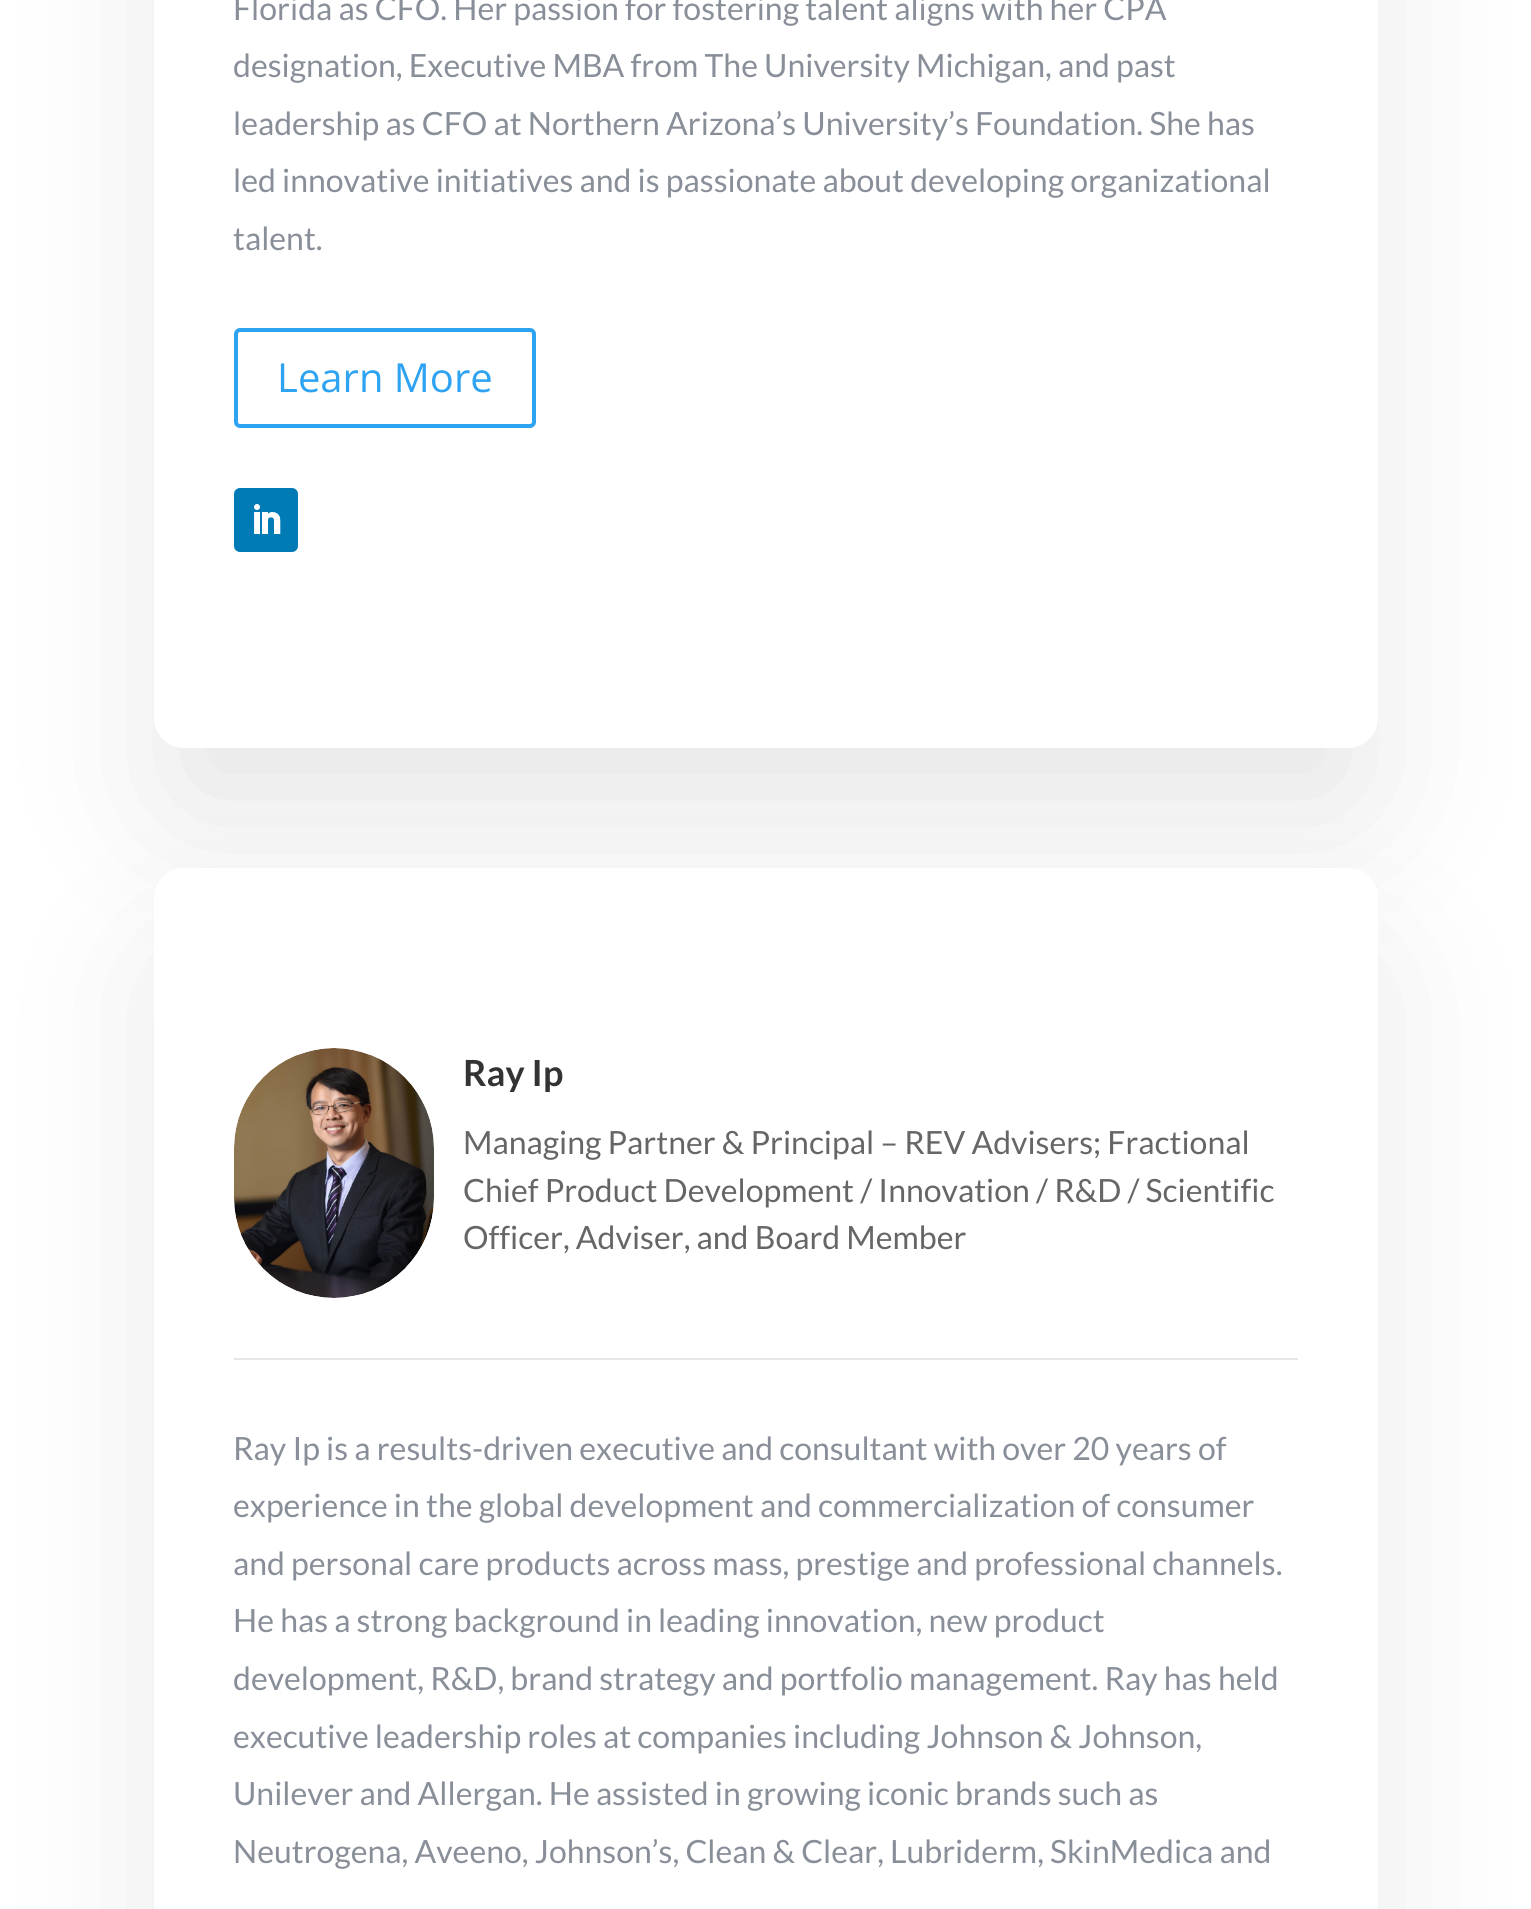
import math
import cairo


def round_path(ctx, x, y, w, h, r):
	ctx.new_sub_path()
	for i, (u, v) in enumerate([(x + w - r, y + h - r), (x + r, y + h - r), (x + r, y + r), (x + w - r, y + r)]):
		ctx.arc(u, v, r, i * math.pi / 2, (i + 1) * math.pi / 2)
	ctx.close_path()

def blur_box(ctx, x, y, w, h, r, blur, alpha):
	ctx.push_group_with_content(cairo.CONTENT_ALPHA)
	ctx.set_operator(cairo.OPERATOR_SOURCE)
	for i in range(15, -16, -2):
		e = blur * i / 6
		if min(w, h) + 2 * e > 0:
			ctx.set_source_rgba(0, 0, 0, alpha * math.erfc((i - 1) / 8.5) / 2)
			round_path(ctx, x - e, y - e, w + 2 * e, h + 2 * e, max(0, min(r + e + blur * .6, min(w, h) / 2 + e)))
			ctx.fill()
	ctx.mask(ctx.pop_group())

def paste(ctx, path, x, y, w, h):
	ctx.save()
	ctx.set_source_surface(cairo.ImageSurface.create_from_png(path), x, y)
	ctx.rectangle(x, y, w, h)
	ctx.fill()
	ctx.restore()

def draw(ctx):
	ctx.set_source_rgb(1, 1, 1)
	ctx.paint()
	ctx.set_source_rgb(0, 0, 0)
	blur_box(ctx, 166, -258, 1200, 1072, 18, 80, 0.1)
	ctx.set_source_rgb(1, 1, 1)
	round_path(ctx, 154, -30, 1224, 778, 30)
	ctx.fill()
	ctx.select_font_face('Lato')
	ctx.set_font_size(32)
	ctx.set_source_rgb(0.537, 0.561, 0.6)
	for x, y, s in [
		(233, 20, 'Florida as CFO. Her passion for fostering talent aligns with her CPA'),
		(233, 77, 'designation, Executive MBA from The University Michigan, and past'),
		(233, 135, 'leadership as CFO at Northern Arizona’s University’s Foundation. She has'),
		(233, 192, 'led innovative initiatives and is passionate about developing organizational'),
		(233, 250, 'talent.'),
	]:
		ctx.move_to(x, y)
		ctx.show_text(s)
	round_path(ctx, 236, 330, 298, 96, 4)
	ctx.set_source_rgb(0.18, 0.639, 0.949)
	ctx.set_line_width(4)
	ctx.stroke()
	ctx.select_font_face('Open Sans')
	ctx.set_font_size(40)
	ctx.move_to(277, 392)
	ctx.show_text('Learn More')
	ctx.set_source_rgb(0, 0.482, 0.714)
	round_path(ctx, 234, 488, 64, 64, 6)
	ctx.fill()
	paste(ctx, 'media/1.png', 254, 504, 27, 30)
	ctx.set_source_rgb(0, 0, 0)
	blur_box(ctx, 166, 958, 1200, 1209, 18, 80, 0.1)
	ctx.set_source_rgb(1, 1, 1)
	round_path(ctx, 154, 868, 1224, 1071, 30)
	ctx.fill()
	paste(ctx, 'media/2.png', 234, 1048, 200, 250)
	ctx.select_font_face('Lato', cairo.FONT_SLANT_NORMAL, cairo.FONT_WEIGHT_BOLD)
	ctx.set_font_size(36)
	ctx.set_source_rgb(0.2, 0.2, 0.2)
	ctx.move_to(463, 1086)
	ctx.show_text('Ray Ip')
	ctx.select_font_face('Lato')
	ctx.set_font_size(32)
	ctx.set_source_rgb(0.4, 0.4, 0.4)
	for x, y, s in [
		(463, 1154, 'Managing Partner & Principal – REV Advisers; Fractional'),
		(463, 1202, 'Chief Product Development / Innovation / R&D / Scientific'),
		(463, 1249, 'Officer, Adviser, and Board Member'),
	]:
		ctx.move_to(x, y)
		ctx.show_text(s)
	ctx.set_source_rgb(0.906, 0.906, 0.906)
	ctx.rectangle(234, 1358, 1064, 2)
	ctx.fill()
	ctx.set_source_rgb(0.537, 0.561, 0.6)
	for x, y, s in [
		(233, 1460, 'Ray Ip is a results-driven executive and consultant with over 20 years of'),
		(233, 1517, 'experience in the global development and commercialization of consumer'),
		(233, 1575, 'and personal care products across mass, prestige and professional channels.'),
		(233, 1632, 'He has a strong background in leading innovation, new product'),
		(233, 1690, 'development, R&D, brand strategy and portfolio management. Ray has held'),
		(233, 1748, 'executive leadership roles at companies including Johnson & Johnson,'),
		(233, 1805, 'Unilever and Allergan. He assisted in growing iconic brands such as'),
		(233, 1863, 'Neutrogena, Aveeno, Johnson’s, Clean & Clear, Lubriderm, SkinMedica and'),
	]:
		ctx.move_to(x, y)
		ctx.show_text(s)


surface = cairo.ImageSurface(cairo.FORMAT_RGB24, 1531, 1909)
ctx = cairo.Context(surface)
options = cairo.FontOptions()
options.set_hint_metrics(cairo.HINT_METRICS_OFF)
options.set_hint_style(cairo.HINT_STYLE_NONE)
ctx.set_font_options(options)
ctx.set_miter_limit(4)
draw(ctx)
surface.write_to_png('image.png')
